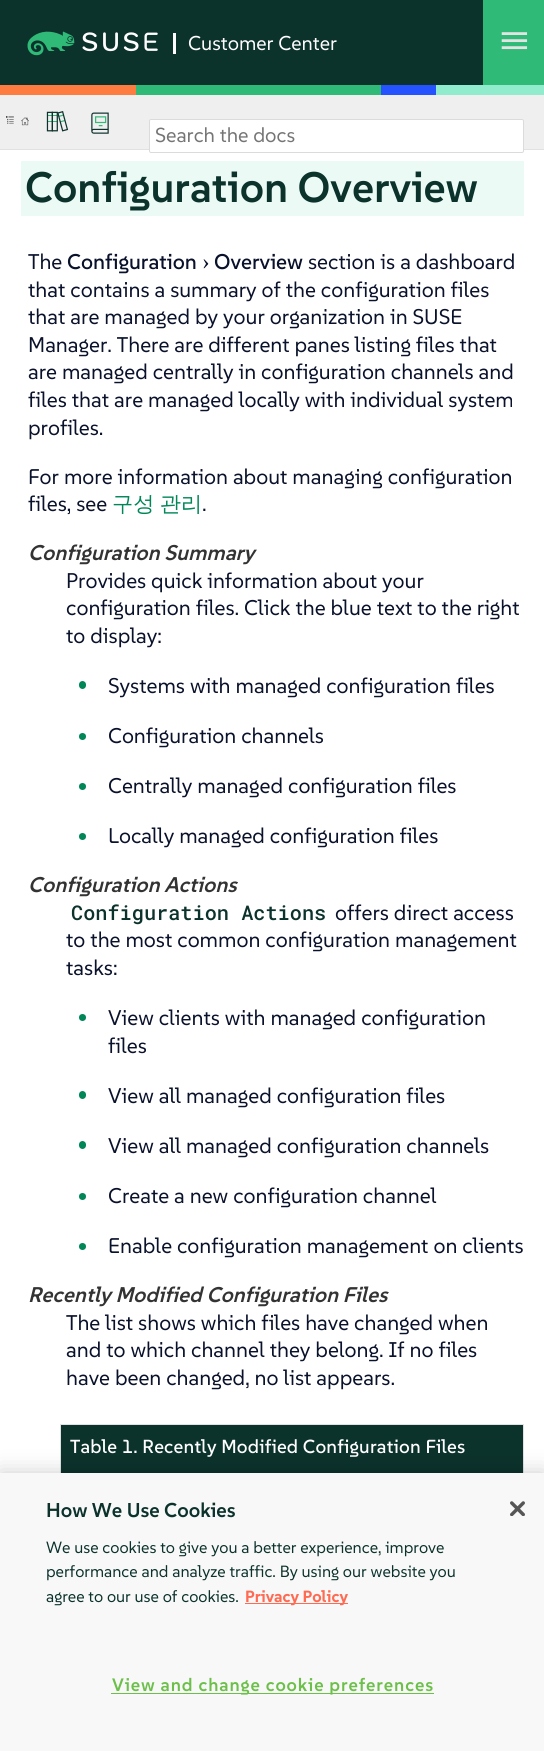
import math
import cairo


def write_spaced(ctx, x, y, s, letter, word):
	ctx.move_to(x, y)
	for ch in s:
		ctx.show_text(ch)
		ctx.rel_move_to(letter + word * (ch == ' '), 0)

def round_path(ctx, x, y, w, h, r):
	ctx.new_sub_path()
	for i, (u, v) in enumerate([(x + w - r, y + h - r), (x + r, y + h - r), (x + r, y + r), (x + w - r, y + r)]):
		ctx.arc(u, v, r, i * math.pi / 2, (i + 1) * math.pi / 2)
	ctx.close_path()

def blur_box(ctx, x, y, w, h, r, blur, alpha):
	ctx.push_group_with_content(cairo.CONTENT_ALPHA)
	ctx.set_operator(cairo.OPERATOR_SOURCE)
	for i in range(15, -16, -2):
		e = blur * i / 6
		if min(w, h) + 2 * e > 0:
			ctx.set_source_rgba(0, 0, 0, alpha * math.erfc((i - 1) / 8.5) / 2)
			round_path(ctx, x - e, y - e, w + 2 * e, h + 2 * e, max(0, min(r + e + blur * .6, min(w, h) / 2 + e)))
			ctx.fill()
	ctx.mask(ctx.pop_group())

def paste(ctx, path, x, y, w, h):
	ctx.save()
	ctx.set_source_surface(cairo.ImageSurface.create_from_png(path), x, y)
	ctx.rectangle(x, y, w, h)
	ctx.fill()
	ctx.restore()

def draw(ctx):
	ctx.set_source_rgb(1, 1, 1)
	ctx.paint()
	ctx.set_source_rgb(0.047, 0.196, 0.173)
	ctx.rectangle(0, 0, 483, 85)
	ctx.fill()
	paste(ctx, 'media/1.png', 27, 31, 131, 25)
	ctx.set_source_rgb(1, 1, 1)
	ctx.rectangle(173, 33, 3, 21)
	ctx.fill()
	ctx.select_font_face('SUSE')
	ctx.set_font_size(20)
	ctx.move_to(188, 50)
	ctx.show_text('Customer Center')
	ctx.set_source_rgb(0.188, 0.729, 0.471)
	ctx.rectangle(483, 0, 61, 85)
	ctx.fill()
	paste(ctx, 'media/2.png', 501, 32, 27, 18)
	ctx.set_source_rgb(0.996, 0.486, 0.247)
	ctx.rectangle(0, 85, 136, 10)
	ctx.fill()
	ctx.set_source_rgb(0.188, 0.729, 0.471)
	ctx.rectangle(136, 85, 245, 10)
	ctx.fill()
	ctx.set_source_rgb(0.141, 0.325, 1)
	ctx.rectangle(381, 85, 55, 10)
	ctx.fill()
	ctx.set_source_rgb(0.565, 0.922, 0.804)
	ctx.rectangle(436, 85, 108, 10)
	ctx.fill()
	ctx.set_source_rgb(0.882, 0.882, 0.882)
	ctx.rectangle(0, 149, 544, 1)
	ctx.fill()
	ctx.set_source_rgb(0.937, 0.937, 0.937)
	ctx.rectangle(0, 95, 544, 54)
	ctx.fill()
	paste(ctx, 'media/3.png', 6, 116, 8, 8)
	paste(ctx, 'media/4.png', 21, 117, 8, 9)
	paste(ctx, 'media/5.png', 46, 111, 23, 21)
	paste(ctx, 'media/6.png', 91, 112, 18, 22)
	ctx.set_source_rgb(1, 1, 1)
	round_path(ctx, 149.5, 119.5, 374, 33, 1.5)
	ctx.fill_preserve()
	ctx.set_source_rgb(0.859, 0.859, 0.859)
	ctx.set_line_width(1)
	ctx.stroke()
	ctx.set_font_size(20.25)
	ctx.set_source_rgb(0.459, 0.459, 0.459)
	ctx.move_to(155, 142)
	ctx.show_text('Search the docs')
	ctx.set_source_rgb(0.918, 0.98, 0.957)
	ctx.rectangle(21, 161, 503, 55)
	ctx.fill()
	ctx.select_font_face('SUSE SemiBold')
	ctx.set_font_size(42.5)
	ctx.set_source_rgb(0.047, 0.196, 0.173)
	ctx.move_to(25, 202)
	ctx.show_text('Configuration Overview')
	ctx.select_font_face('SUSE')
	ctx.set_font_size(21.25)
	ctx.set_source_rgb(0.039, 0.067, 0.169)
	ctx.move_to(28, 269)
	ctx.show_text('The')
	ctx.select_font_face('SUSE Medium')
	ctx.move_to(67, 269)
	ctx.show_text('Configuration')
	ctx.select_font_face('Liberation Serif')
	ctx.set_font_size(23)
	ctx.move_to(202, 269)
	ctx.show_text('›')
	ctx.select_font_face('SUSE Medium')
	ctx.set_font_size(21.25)
	ctx.move_to(214, 269)
	ctx.show_text('Overview')
	ctx.select_font_face('SUSE')
	for x, y, s in [
		(308, 269, 'section is a dashboard'),
		(28, 297, 'that contains a summary of the configuration files'),
		(28, 324, 'that are managed by your organization in SUSE'),
		(28, 352, 'Manager. There are different panes listing files that'),
		(28, 379, 'are managed centrally in configuration channels and'),
		(28, 407, 'files that are managed locally with individual system'),
		(28, 435, 'profiles.'),
		(28, 484, 'For more information about managing configuration'),
		(28, 511, 'files, see'),
	]:
		ctx.move_to(x, y)
		ctx.show_text(s)
	ctx.select_font_face('WenQuanYi Zen Hei Medium')
	ctx.set_source_rgb(0, 0.525, 0.341)
	write_spaced(ctx, 112, 511, '구성 관리', 0, -1)
	ctx.select_font_face('SUSE')
	ctx.set_source_rgb(0.039, 0.067, 0.169)
	ctx.move_to(202, 511)
	ctx.show_text('.')
	ctx.select_font_face('SUSE SemiBold', cairo.FONT_SLANT_ITALIC)
	ctx.set_source_rgb(0.2, 0.2, 0.2)
	ctx.move_to(28, 560)
	ctx.show_text('Configuration Summary')
	ctx.select_font_face('SUSE')
	ctx.set_source_rgb(0.039, 0.067, 0.169)
	for x, y, s in [
		(66, 588, 'Provides quick information about your'),
		(66, 615, 'configuration files. Click the blue text to the right'),
		(66, 643, 'to display:'),
	]:
		ctx.move_to(x, y)
		ctx.show_text(s)
	ctx.set_source_rgb(0, 0.525, 0.341)
	round_path(ctx, 79, 681, 7, 8, 3.5)
	ctx.fill()
	ctx.set_source_rgb(0.039, 0.067, 0.169)
	ctx.move_to(108, 693)
	ctx.show_text('Systems with managed configuration files')
	ctx.set_source_rgb(0, 0.525, 0.341)
	ctx.new_path()
	ctx.arc(82.5, 736.5, 3.5, 0, 2 * math.pi)
	ctx.fill()
	ctx.set_source_rgb(0.039, 0.067, 0.169)
	ctx.move_to(108, 743)
	ctx.show_text('Configuration channels')
	ctx.set_source_rgb(0, 0.525, 0.341)
	ctx.new_path()
	ctx.arc(82.5, 786.5, 3.5, 0, 2 * math.pi)
	ctx.fill()
	ctx.set_source_rgb(0.039, 0.067, 0.169)
	ctx.move_to(108, 793)
	ctx.show_text('Centrally managed configuration files')
	ctx.set_source_rgb(0, 0.525, 0.341)
	ctx.new_path()
	ctx.arc(82.5, 836.5, 3.5, 0, 2 * math.pi)
	ctx.fill()
	ctx.set_source_rgb(0.039, 0.067, 0.169)
	ctx.move_to(108, 843)
	ctx.show_text('Locally managed configuration files')
	ctx.select_font_face('SUSE SemiBold', cairo.FONT_SLANT_ITALIC)
	ctx.set_source_rgb(0.2, 0.2, 0.2)
	ctx.move_to(28, 892)
	ctx.show_text('Configuration Actions')
	ctx.select_font_face('Roboto Mono Medium')
	ctx.set_font_size(20.25)
	ctx.set_source_rgb(0.047, 0.196, 0.173)
	ctx.move_to(71, 920)
	ctx.show_text('Configuration Actions')
	ctx.select_font_face('SUSE')
	ctx.set_font_size(21.25)
	ctx.set_source_rgb(0.039, 0.067, 0.169)
	for x, y, s in [
		(335, 920, 'offers direct access'),
		(66, 947, 'to the most common configuration management'),
		(66, 975, 'tasks:'),
	]:
		ctx.move_to(x, y)
		ctx.show_text(s)
	ctx.set_source_rgb(0, 0.525, 0.341)
	ctx.new_path()
	ctx.arc(82.5, 1017.5, 3.5, 0, 2 * math.pi)
	ctx.fill()
	ctx.set_source_rgb(0.039, 0.067, 0.169)
	ctx.move_to(108, 1025)
	ctx.show_text('View clients with managed configuration')
	ctx.move_to(108, 1053)
	ctx.show_text('files')
	ctx.set_source_rgb(0, 0.525, 0.341)
	round_path(ctx, 79, 1091, 7, 8, 3.5)
	ctx.fill()
	ctx.set_source_rgb(0.039, 0.067, 0.169)
	ctx.move_to(108, 1103)
	ctx.show_text('View all managed configuration files')
	ctx.set_source_rgb(0, 0.525, 0.341)
	round_path(ctx, 79, 1141, 7, 8, 3.5)
	ctx.fill()
	ctx.set_source_rgb(0.039, 0.067, 0.169)
	ctx.move_to(108, 1153)
	ctx.show_text('View all managed configuration channels')
	ctx.set_source_rgb(0, 0.525, 0.341)
	ctx.new_path()
	ctx.arc(82.5, 1196.5, 3.5, 0, 2 * math.pi)
	ctx.fill()
	ctx.set_source_rgb(0.039, 0.067, 0.169)
	ctx.move_to(108, 1203)
	ctx.show_text('Create a new configuration channel')
	ctx.set_source_rgb(0, 0.525, 0.341)
	ctx.new_path()
	ctx.arc(82.5, 1246.5, 3.5, 0, 2 * math.pi)
	ctx.fill()
	ctx.set_source_rgb(0.039, 0.067, 0.169)
	ctx.move_to(108, 1253)
	ctx.show_text('Enable configuration management on clients')
	ctx.select_font_face('SUSE SemiBold', cairo.FONT_SLANT_ITALIC)
	ctx.set_source_rgb(0.2, 0.2, 0.2)
	ctx.move_to(28, 1302)
	ctx.show_text('Recently Modified Configuration Files')
	ctx.select_font_face('SUSE')
	ctx.set_source_rgb(0.039, 0.067, 0.169)
	for x, y, s in [
		(66, 1330, 'The list shows which files have changed when'),
		(66, 1357, 'and to which channel they belong. If no files'),
		(66, 1385, 'have been changed, no list appears.'),
	]:
		ctx.move_to(x, y)
		ctx.show_text(s)
	ctx.set_source_rgb(0.882, 0.882, 0.882)
	ctx.rectangle(60, 1424, 464, 1)
	ctx.rectangle(523, 1424, 1, 49)
	ctx.rectangle(60, 1424, 1, 49)
	ctx.fill()
	ctx.set_source_rgb(0.047, 0.196, 0.173)
	ctx.rectangle(61, 1425, 462, 48)
	ctx.fill()
	ctx.select_font_face('SUSE Medium')
	ctx.set_font_size(18.9)
	ctx.set_source_rgb(1, 1, 1)
	write_spaced(ctx, 70, 1453, 'Table 1. Recently Modified Configuration Files', 0.2, 0)
	ctx.set_source_rgb(0, 0, 0)
	blur_box(ctx, 0, 1473, 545, 278, 0, 11, 0.2)
	ctx.set_source_rgb(0.969, 0.969, 0.969)
	ctx.rectangle(0, 1473, 544, 278)
	ctx.fill()
	ctx.select_font_face('SUSE SemiBold')
	ctx.set_font_size(20)
	ctx.set_source_rgb(0.047, 0.196, 0.173)
	ctx.move_to(46, 1517)
	ctx.show_text('How We Use Cookies')
	ctx.select_font_face('SUSE')
	ctx.set_font_size(16.25)
	for x, y, s in [
		(46, 1553, 'We use cookies to give you a better experience, improve'),
		(46, 1577, 'performance and analyze traffic. By using our website you'),
		(46, 1602, 'agree to our use of cookies.'),
	]:
		ctx.move_to(x, y)
		ctx.show_text(s)
	ctx.set_source_rgb(1, 0.416, 0.322)
	ctx.rectangle(245, 1603, 103, 1)
	ctx.fill()
	ctx.select_font_face('SUSE', cairo.FONT_SLANT_NORMAL, cairo.FONT_WEIGHT_BOLD)
	ctx.move_to(245, 1602)
	ctx.show_text('Privacy Policy')
	ctx.set_source_rgb(0.424, 0.753, 0.29)
	ctx.rectangle(111, 1693, 323, 1)
	ctx.fill()
	ctx.select_font_face('SUSE SemiBold')
	ctx.set_font_size(18)
	write_spaced(ctx, 112, 1691, 'View and change cookie preferences', 0.9, 0)
	paste(ctx, 'media/7.png', 510, 1501, 15, 15)


surface = cairo.ImageSurface(cairo.FORMAT_RGB24, 544, 1751)
ctx = cairo.Context(surface)
options = cairo.FontOptions()
options.set_hint_metrics(cairo.HINT_METRICS_OFF)
options.set_hint_style(cairo.HINT_STYLE_NONE)
ctx.set_font_options(options)
ctx.set_miter_limit(4)
draw(ctx)
surface.write_to_png('image.png')
